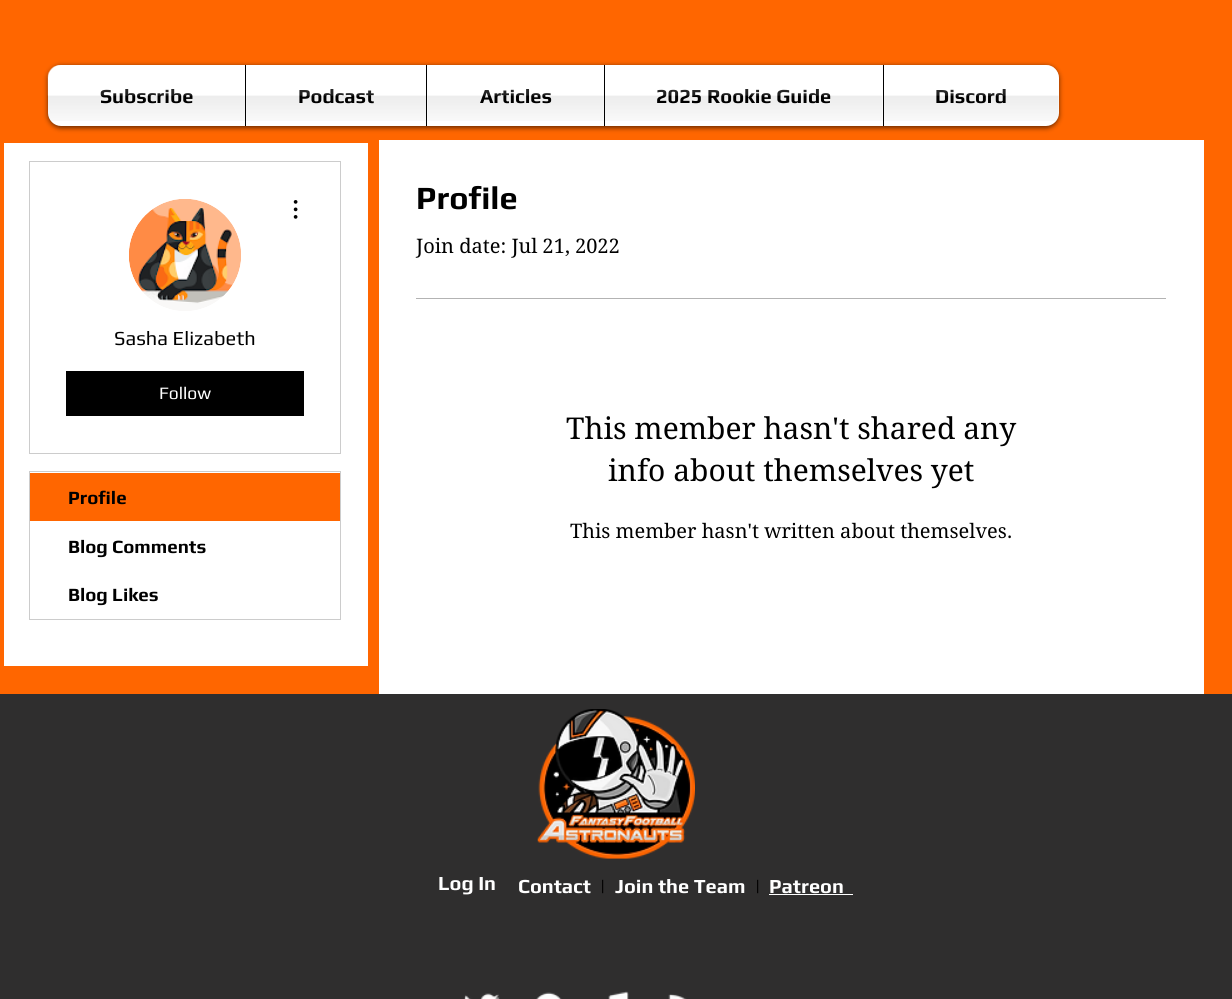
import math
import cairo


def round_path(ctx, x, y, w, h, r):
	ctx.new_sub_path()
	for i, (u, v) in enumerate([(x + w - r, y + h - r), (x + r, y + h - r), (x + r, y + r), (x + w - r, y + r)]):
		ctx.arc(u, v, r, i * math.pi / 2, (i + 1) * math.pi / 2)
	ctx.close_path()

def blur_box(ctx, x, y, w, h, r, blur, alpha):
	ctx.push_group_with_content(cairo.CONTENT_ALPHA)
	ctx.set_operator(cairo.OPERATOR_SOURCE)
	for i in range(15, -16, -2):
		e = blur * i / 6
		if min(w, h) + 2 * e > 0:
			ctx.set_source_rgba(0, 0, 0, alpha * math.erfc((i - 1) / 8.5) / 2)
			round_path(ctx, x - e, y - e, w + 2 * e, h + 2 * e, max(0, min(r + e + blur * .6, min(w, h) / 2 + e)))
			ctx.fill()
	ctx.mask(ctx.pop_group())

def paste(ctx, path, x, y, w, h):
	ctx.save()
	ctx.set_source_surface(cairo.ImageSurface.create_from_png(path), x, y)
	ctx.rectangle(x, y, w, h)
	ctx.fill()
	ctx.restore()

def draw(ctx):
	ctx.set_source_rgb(1, 0.4, 0)
	ctx.paint()
	ctx.set_source_rgb(0, 0, 0)
	blur_box(ctx, 48, 66, 1011, 62, 13, 2.5, 0.6)
	paste(ctx, 'media/1.png', 47, 65, 1012, 56)
	ctx.set_source_rgb(1, 1, 1)
	ctx.new_path()
	ctx.move_to(61, 65)
	ctx.line_to(245, 65)
	ctx.line_to(245, 126)
	ctx.line_to(61, 126)
	ctx.curve_to(54, 126, 48, 120, 48, 113)
	ctx.line_to(48, 78)
	ctx.curve_to(48, 71, 54, 65, 61, 65)
	ctx.close_path()
	ctx.fill()
	ctx.select_font_face('Play', cairo.FONT_SLANT_NORMAL, cairo.FONT_WEIGHT_BOLD)
	ctx.set_font_size(20)
	ctx.set_source_rgb(0, 0, 0)
	ctx.move_to(100, 103)
	ctx.show_text('Subscribe')
	paste(ctx, 'media/2.png', 47, 65, 198, 56)
	ctx.set_source_rgb(1, 1, 1)
	ctx.rectangle(246, 65, 180, 61)
	ctx.fill()
	ctx.set_source_rgb(0, 0, 0)
	ctx.rectangle(245, 65, 1, 61)
	ctx.fill()
	ctx.move_to(298, 103)
	ctx.show_text('Podcast')
	paste(ctx, 'media/3.png', 246, 89, 180, 32)
	ctx.set_source_rgb(1, 1, 1)
	ctx.rectangle(427, 65, 177, 61)
	ctx.fill()
	ctx.set_source_rgb(0, 0, 0)
	ctx.rectangle(426, 65, 1, 61)
	ctx.fill()
	ctx.move_to(480, 103)
	ctx.show_text('Articles')
	paste(ctx, 'media/4.png', 427, 89, 177, 32)
	ctx.set_source_rgb(1, 1, 1)
	ctx.rectangle(605, 65, 278, 61)
	ctx.fill()
	ctx.set_source_rgb(0, 0, 0)
	ctx.rectangle(604, 65, 1, 61)
	ctx.fill()
	ctx.move_to(656, 103)
	ctx.show_text('2025 Rookie Guide')
	paste(ctx, 'media/5.png', 605, 89, 278, 32)
	ctx.set_source_rgb(1, 1, 1)
	ctx.new_path()
	ctx.move_to(883, 65)
	ctx.line_to(1046, 65)
	ctx.curve_to(1053, 65, 1059, 71, 1059, 78)
	ctx.line_to(1059, 113)
	ctx.curve_to(1059, 120, 1053, 126, 1046, 126)
	ctx.line_to(883, 126)
	ctx.close_path()
	ctx.fill()
	ctx.set_source_rgb(0, 0, 0)
	ctx.rectangle(883, 65, 1, 61)
	ctx.fill()
	ctx.move_to(935, 103)
	ctx.show_text('Discord')
	paste(ctx, 'media/6.png', 884, 65, 175, 56)
	ctx.set_source_rgb(1, 1, 1)
	ctx.rectangle(4, 143, 364, 523)
	ctx.fill()
	ctx.rectangle(29.5, 161.5, 311, 292)
	ctx.set_source_rgb(0.8, 0.8, 0.8)
	ctx.set_line_width(1)
	ctx.stroke()
	paste(ctx, 'media/7.png', 129, 199, 112, 112)
	paste(ctx, 'media/8.png', 293, 200, 5, 19)
	ctx.select_font_face('Play')
	ctx.set_source_rgb(0, 0, 0)
	ctx.move_to(114, 345)
	ctx.show_text('Sasha Elizabeth')
	ctx.rectangle(66, 371, 238, 45)
	ctx.fill()
	ctx.set_font_size(17.5)
	ctx.set_source_rgb(1, 1, 1)
	ctx.move_to(159, 399)
	ctx.show_text('Follow')
	ctx.rectangle(29.5, 471.5, 311, 148)
	ctx.set_source_rgb(0.8, 0.8, 0.8)
	ctx.stroke()
	ctx.set_source_rgb(1, 0.4, 0)
	ctx.rectangle(30, 473, 310, 48)
	ctx.fill()
	ctx.select_font_face('Play', cairo.FONT_SLANT_NORMAL, cairo.FONT_WEIGHT_BOLD)
	ctx.set_font_size(18.75)
	ctx.set_source_rgb(0, 0, 0)
	for x, y, s in [
		(68, 504, 'Profile'),
		(68, 553, 'Blog Comments'),
		(68, 601, 'Blog Likes'),
	]:
		ctx.move_to(x, y)
		ctx.show_text(s)
	ctx.set_source_rgb(1, 1, 1)
	ctx.rectangle(379, 140, 825, 554)
	ctx.fill()
	ctx.set_font_size(32.5)
	ctx.set_source_rgb(0, 0, 0)
	ctx.move_to(416, 209)
	ctx.show_text('Profile')
	ctx.select_font_face('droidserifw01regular')
	ctx.set_font_size(20)
	ctx.move_to(416, 253)
	ctx.show_text('Join date: Jul 21, 2022')
	ctx.set_source_rgb(0.702, 0.702, 0.702)
	ctx.rectangle(416, 298, 750, 1)
	ctx.fill()
	ctx.set_font_size(30)
	ctx.set_source_rgb(0, 0, 0)
	ctx.move_to(566, 439)
	ctx.show_text('This member hasn\'t shared any')
	ctx.move_to(608, 481)
	ctx.show_text('info about themselves yet')
	ctx.set_font_size(20)
	ctx.move_to(570, 538)
	ctx.show_text('This member hasn\'t written about themselves.')
	ctx.set_source_rgb(0.184, 0.18, 0.18)
	ctx.rectangle(0, 694, 1232, 305)
	ctx.fill()
	paste(ctx, 'media/9.png', 537, 709, 158, 150)
	ctx.select_font_face('Play', cairo.FONT_SLANT_NORMAL, cairo.FONT_WEIGHT_BOLD)
	ctx.set_source_rgb(1, 1, 1)
	ctx.move_to(438, 890)
	ctx.show_text('Log In')
	ctx.move_to(518, 893)
	ctx.show_text('Contact')
	ctx.set_source_rgb(0, 0, 0)
	ctx.move_to(600, 893)
	ctx.show_text('|')
	ctx.set_source_rgb(1, 1, 1)
	ctx.move_to(615, 893)
	ctx.show_text('Join the Team')
	ctx.set_source_rgb(0, 0, 0)
	ctx.move_to(755, 893)
	ctx.show_text('|')
	ctx.set_source_rgb(1, 1, 1)
	ctx.move_to(769, 893)
	ctx.show_text('Patreon')
	ctx.rectangle(769, 894, 84, 1)
	ctx.fill()
	paste(ctx, 'media/10.png', 464, 993, 36, 6)
	paste(ctx, 'media/11.png', 536, 992, 26, 7)
	paste(ctx, 'media/12.png', 608, 991, 21, 8)
	paste(ctx, 'media/13.png', 668, 994, 19, 5)


surface = cairo.ImageSurface(cairo.FORMAT_RGB24, 1232, 999)
ctx = cairo.Context(surface)
options = cairo.FontOptions()
options.set_hint_metrics(cairo.HINT_METRICS_OFF)
options.set_hint_style(cairo.HINT_STYLE_NONE)
ctx.set_font_options(options)
ctx.set_miter_limit(4)
draw(ctx)
surface.write_to_png('image.png')
